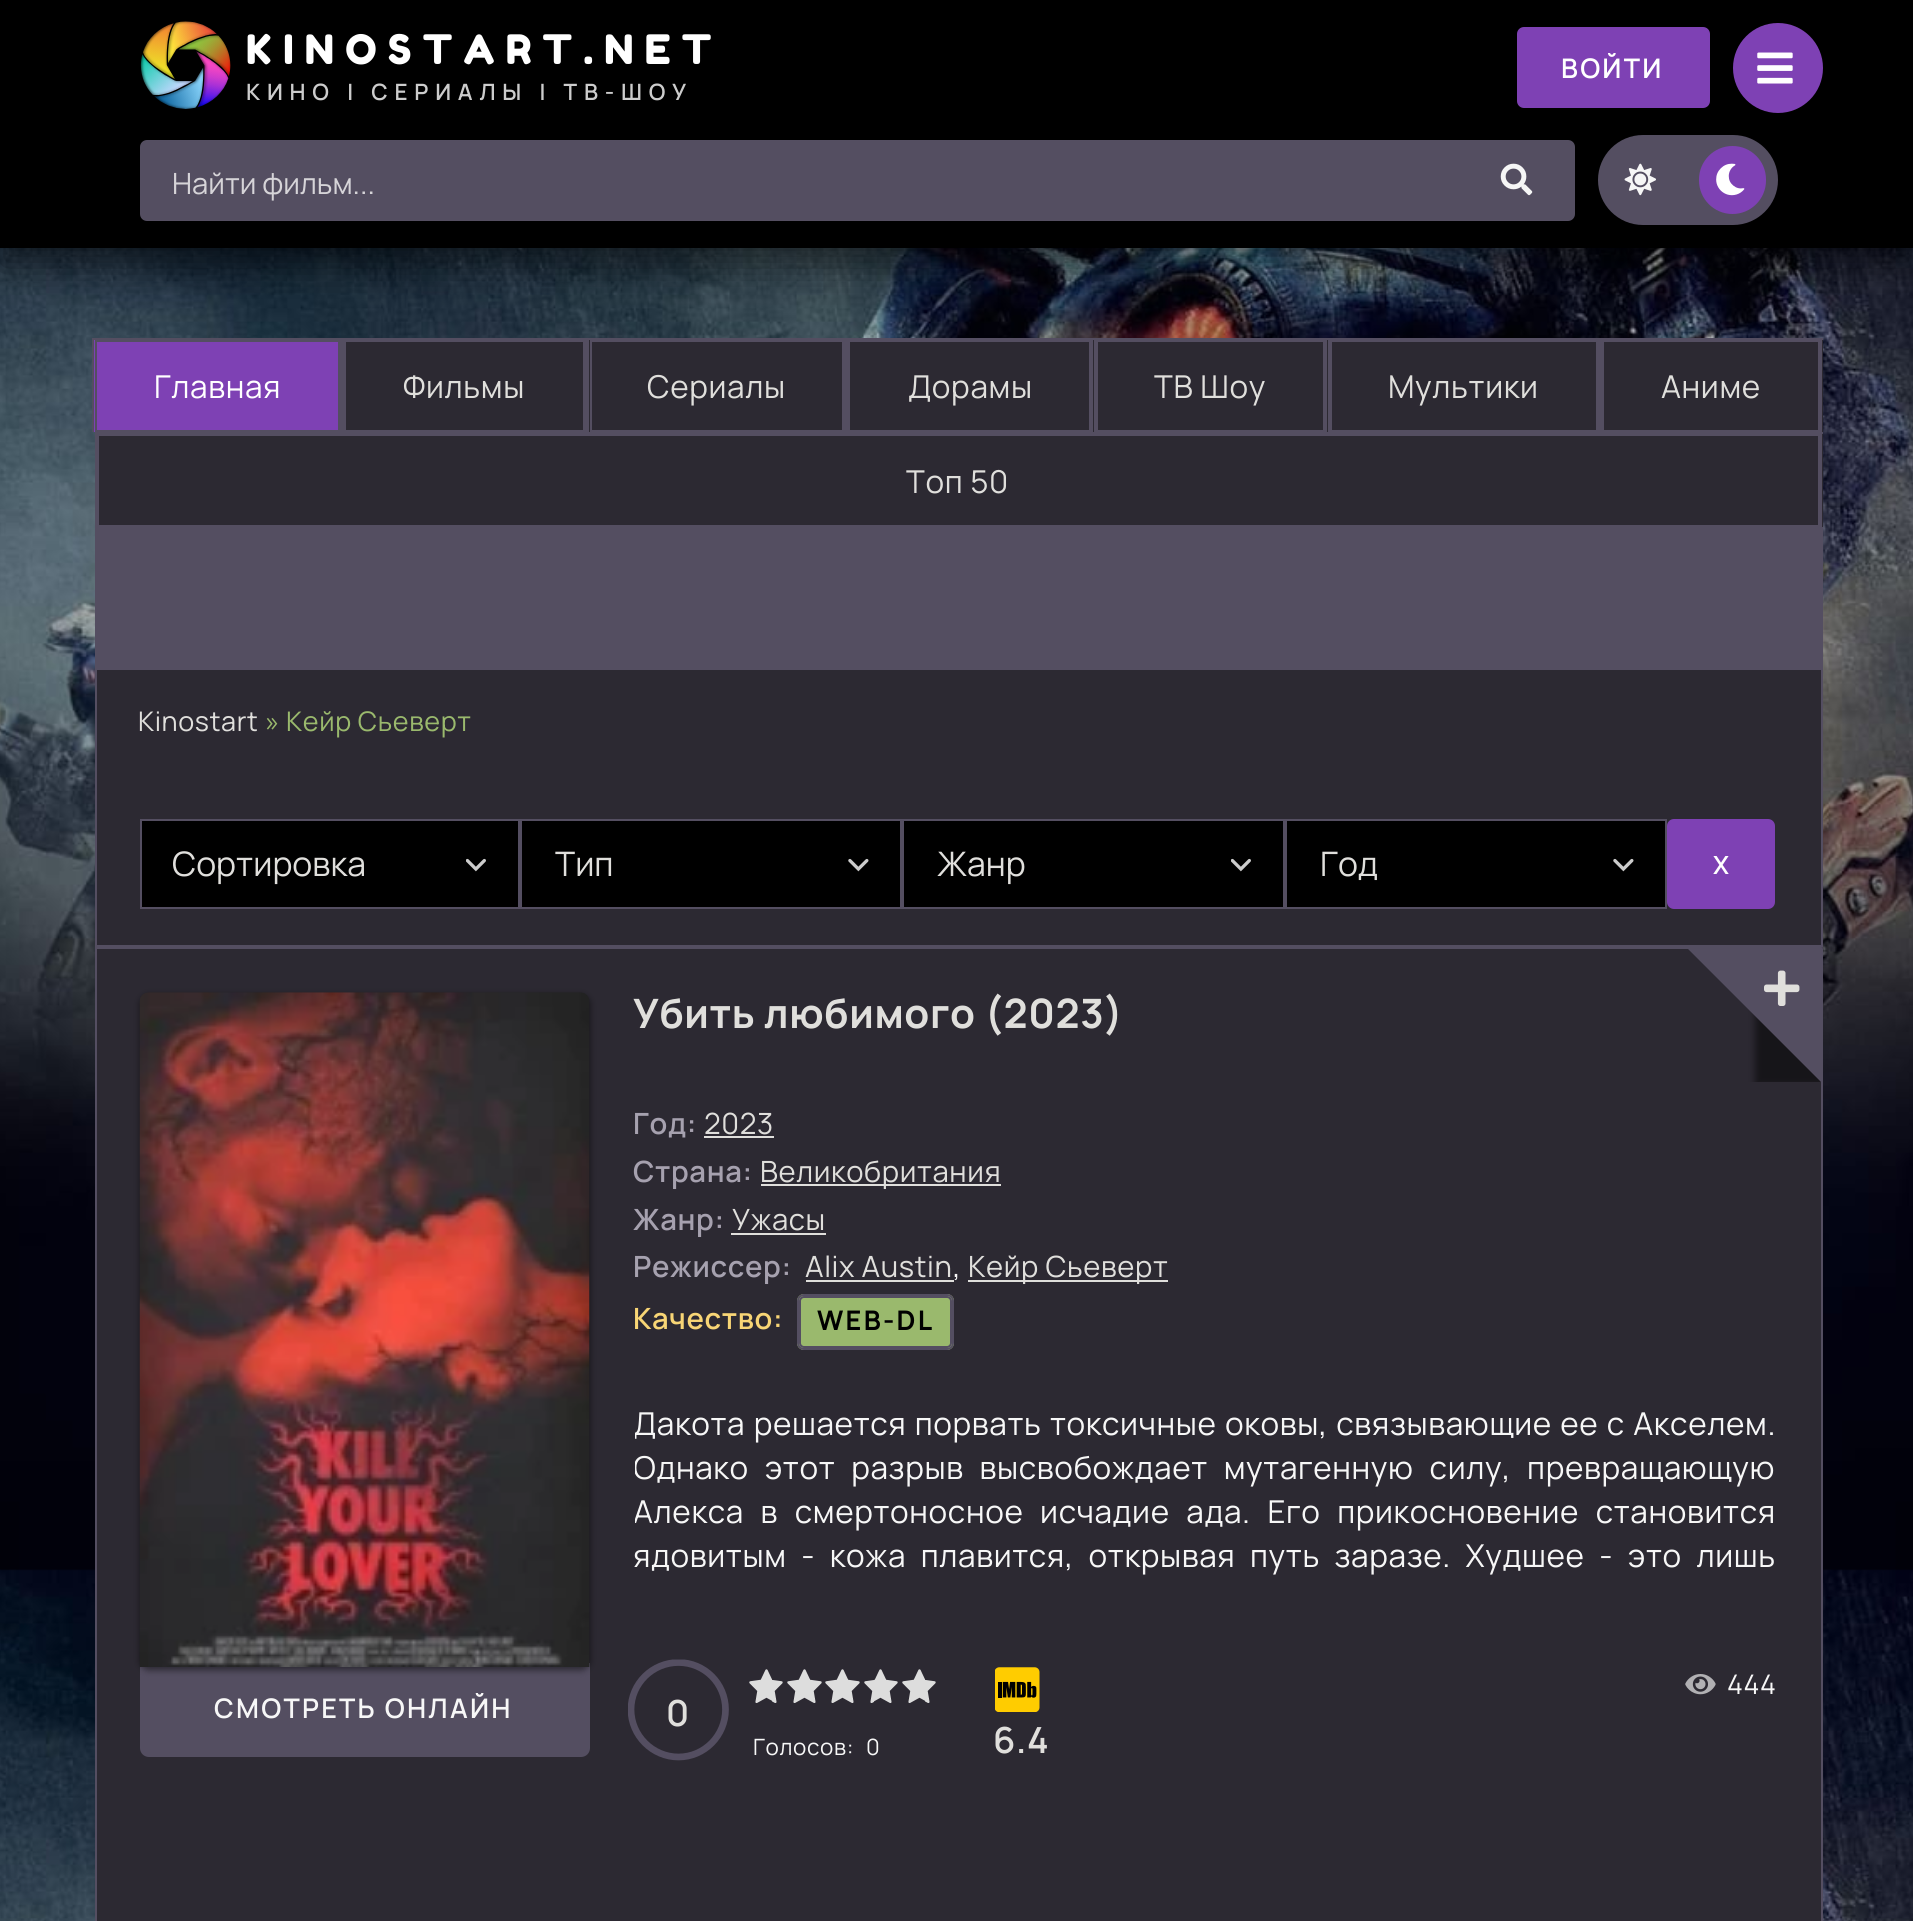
import math
import cairo


def write_spaced(ctx, x, y, s, letter, word):
	ctx.move_to(x, y)
	for ch in s:
		ctx.show_text(ch)
		ctx.rel_move_to(letter + word * (ch == ' '), 0)

def round_path(ctx, x, y, w, h, r):
	ctx.new_sub_path()
	for i, (u, v) in enumerate([(x + w - r, y + h - r), (x + r, y + h - r), (x + r, y + r), (x + w - r, y + r)]):
		ctx.arc(u, v, r, i * math.pi / 2, (i + 1) * math.pi / 2)
	ctx.close_path()

def blur_box(ctx, x, y, w, h, r, blur, alpha):
	ctx.push_group_with_content(cairo.CONTENT_ALPHA)
	ctx.set_operator(cairo.OPERATOR_SOURCE)
	for i in range(15, -16, -2):
		e = blur * i / 6
		if min(w, h) + 2 * e > 0:
			ctx.set_source_rgba(0, 0, 0, alpha * math.erfc((i - 1) / 8.5) / 2)
			round_path(ctx, x - e, y - e, w + 2 * e, h + 2 * e, max(0, min(r + e + blur * .6, min(w, h) / 2 + e)))
			ctx.fill()
	ctx.mask(ctx.pop_group())

def paste(ctx, path, x, y, w, h):
	ctx.save()
	ctx.set_source_surface(cairo.ImageSurface.create_from_png(path), x, y)
	ctx.rectangle(x, y, w, h)
	ctx.fill()
	ctx.restore()

def draw(ctx):
	ctx.set_source_rgb(1, 1, 1)
	ctx.paint()
	paste(ctx, 'media/1.png', 0, 248, 1913, 1673)
	ctx.set_source_rgb(0, 0, 0)
	blur_box(ctx, 0, 18, 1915, 248, 0, 18, 0.5)
	ctx.set_source_rgb(0, 0, 0)
	ctx.rectangle(0, 0, 1913, 248)
	ctx.fill()
	paste(ctx, 'media/2.png', 140, 21, 91, 88)
	ctx.select_font_face('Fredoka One')
	ctx.set_font_size(40.5)
	ctx.set_source_rgb(1, 1, 1)
	write_spaced(ctx, 246, 64, 'KINOSTART.NET', 11.25, 0)
	ctx.select_font_face('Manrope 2 ExtraLight')
	ctx.set_font_size(22.5)
	ctx.set_source_rgb(0.8, 0.8, 0.8)
	write_spaced(ctx, 246, 100, 'КИНО | СЕРИАЛЫ | ТВ-ШОУ', 6.75, 0)
	ctx.set_source_rgb(0.494, 0.255, 0.706)
	round_path(ctx, 1517, 27, 193, 81, 7)
	ctx.fill()
	ctx.set_font_size(27)
	ctx.set_source_rgb(1, 1, 1)
	write_spaced(ctx, 1561, 78, 'ВОЙТИ', 2.25, 0)
	ctx.set_source_rgb(0.494, 0.255, 0.706)
	ctx.new_path()
	ctx.arc(1778, 68, 45, 0, 2 * math.pi)
	ctx.fill()
	paste(ctx, 'media/3.png', 1757, 52, 36, 32)
	ctx.set_source_rgb(0.329, 0.306, 0.38)
	round_path(ctx, 140, 140, 1435, 81, 7)
	ctx.fill()
	ctx.select_font_face('Manrope ExtraLight')
	ctx.set_font_size(29.25)
	ctx.set_source_rgb(0.839, 0.831, 0.847)
	ctx.move_to(172, 194)
	ctx.show_text('Найти фильм...')
	paste(ctx, 'media/4.png', 1500, 163, 33, 33)
	ctx.set_source_rgb(0.329, 0.306, 0.38)
	round_path(ctx, 1598, 135, 180, 90, 45)
	ctx.fill()
	paste(ctx, 'media/5.png', 1624, 163, 32, 33)
	ctx.set_source_rgb(0.494, 0.255, 0.706)
	round_path(ctx, 1699, 146, 67, 68, 33.5)
	ctx.fill()
	paste(ctx, 'media/6.png', 1716, 163, 29, 33)
	ctx.rectangle(94, 340, 244, 92)
	ctx.fill()
	ctx.rectangle(96, 341, 243, 90)
	ctx.set_source_rgb(0.329, 0.306, 0.38)
	ctx.stroke()
	ctx.rectangle(92, 338, 1731, 2)
	ctx.rectangle(340, 338, 4, 94)
	ctx.rectangle(92, 338, 2, 94)
	ctx.fill()
	ctx.set_font_size(31.5)
	ctx.set_source_rgb(1, 1, 1)
	write_spaced(ctx, 154, 398, 'Главная', 0.63, 0)
	ctx.set_source_rgb(0.173, 0.161, 0.196)
	ctx.rectangle(345, 341, 239, 90)
	ctx.fill_preserve()
	ctx.set_source_rgb(0.329, 0.306, 0.38)
	ctx.stroke()
	ctx.rectangle(585, 338, 4, 94)
	ctx.fill()
	ctx.set_source_rgb(0.878, 0.875, 0.863)
	write_spaced(ctx, 403, 398, 'Фильмы', 0.63, 0)
	ctx.set_source_rgb(0.173, 0.161, 0.196)
	ctx.rectangle(589, 340, 253, 92)
	ctx.fill()
	ctx.rectangle(591, 341, 252, 90)
	ctx.set_source_rgb(0.329, 0.306, 0.38)
	ctx.stroke()
	ctx.rectangle(844, 338, 4, 94)
	ctx.fill()
	ctx.set_source_rgb(0.878, 0.875, 0.863)
	write_spaced(ctx, 647, 398, 'Сериалы', 0.63, 0)
	ctx.set_source_rgb(0.173, 0.161, 0.196)
	ctx.rectangle(850, 340, 244, 92)
	ctx.fill()
	ctx.rectangle(849, 341, 241, 90)
	ctx.set_source_rgb(0.329, 0.306, 0.38)
	ctx.stroke()
	ctx.rectangle(1091, 338, 2, 94)
	ctx.fill()
	ctx.set_source_rgb(0.878, 0.875, 0.863)
	write_spaced(ctx, 908, 398, 'Дорамы', 0.63, 0)
	ctx.set_source_rgb(0.173, 0.161, 0.196)
	ctx.rectangle(1098, 340, 230, 92)
	ctx.fill()
	ctx.rectangle(1097, 341, 227, 90)
	ctx.set_source_rgb(0.329, 0.306, 0.38)
	ctx.stroke()
	ctx.rectangle(1325, 338, 2, 94)
	ctx.fill()
	ctx.rectangle(1094, 338, 2, 94)
	ctx.fill()
	ctx.set_source_rgb(0.878, 0.875, 0.863)
	write_spaced(ctx, 1154, 398, 'ТВ Шоу', 0.63, 0)
	ctx.set_source_rgb(0.173, 0.161, 0.196)
	ctx.rectangle(1331, 341, 266, 90)
	ctx.fill_preserve()
	ctx.set_source_rgb(0.329, 0.306, 0.38)
	ctx.stroke()
	ctx.rectangle(1598, 338, 4, 94)
	ctx.fill()
	ctx.rectangle(1328, 338, 2, 94)
	ctx.fill()
	ctx.set_source_rgb(0.878, 0.875, 0.863)
	write_spaced(ctx, 1388, 398, 'Мультики', 0.63, 0)
	ctx.set_source_rgb(0.173, 0.161, 0.196)
	ctx.rectangle(1604, 340, 219, 92)
	ctx.fill()
	ctx.rectangle(1603, 341, 216, 90)
	ctx.set_source_rgb(0.329, 0.306, 0.38)
	ctx.stroke()
	ctx.rectangle(1820, 338, 2, 94)
	ctx.fill()
	ctx.set_source_rgb(0.878, 0.875, 0.863)
	write_spaced(ctx, 1661, 398, 'Аниме', 0.63, 0)
	ctx.set_source_rgb(0.173, 0.161, 0.196)
	ctx.rectangle(99, 434, 1724, 93)
	ctx.fill()
	ctx.rectangle(98, 435, 1721, 91)
	ctx.set_source_rgb(0.329, 0.306, 0.38)
	ctx.stroke()
	ctx.rectangle(95, 432, 1728, 2)
	ctx.rectangle(1820, 432, 2, 95)
	ctx.rectangle(95, 432, 2, 95)
	ctx.fill()
	ctx.set_source_rgb(0.878, 0.875, 0.863)
	write_spaced(ctx, 906, 493, 'Топ 50', 0.63, 0)
	ctx.set_source_rgb(0.173, 0.161, 0.196)
	ctx.rectangle(96, 669, 1726, 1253)
	ctx.fill_preserve()
	ctx.set_source_rgb(0.329, 0.306, 0.38)
	ctx.stroke()
	ctx.rectangle(95, 527, 1728, 141)
	ctx.fill()
	ctx.set_font_size(27)
	ctx.set_source_rgb(0.878, 0.875, 0.863)
	write_spaced(ctx, 138, 731, 'Kinostart', 0.63, 0)
	ctx.set_source_rgb(0.604, 0.725, 0.427)
	write_spaced(ctx, 265, 731, '» Кейр Сьеверт', 0.63, 0)
	ctx.set_source_rgb(0, 0, 0)
	ctx.rectangle(142, 821, 376, 86)
	ctx.fill()
	paste(ctx, 'media/7.png', 466, 858, 20, 14)
	ctx.rectangle(141, 820, 378, 88)
	ctx.set_source_rgb(0.329, 0.306, 0.38)
	ctx.stroke()
	ctx.set_font_size(33.75)
	ctx.set_source_rgb(0.878, 0.875, 0.863)
	ctx.move_to(172, 876)
	ctx.show_text('Сортировка')
	ctx.set_source_rgb(0, 0, 0)
	ctx.rectangle(522, 821, 378, 86)
	ctx.fill()
	paste(ctx, 'media/8.png', 848, 858, 21, 14)
	ctx.rectangle(521, 820, 380, 88)
	ctx.set_source_rgb(0.329, 0.306, 0.38)
	ctx.stroke()
	ctx.set_source_rgb(0.878, 0.875, 0.863)
	ctx.move_to(555, 876)
	ctx.show_text('Тип')
	ctx.set_source_rgb(0, 0, 0)
	ctx.rectangle(904, 821, 379, 86)
	ctx.fill()
	paste(ctx, 'media/7.png', 1231, 858, 20, 14)
	ctx.rectangle(903, 820, 381, 88)
	ctx.set_source_rgb(0.329, 0.306, 0.38)
	ctx.stroke()
	ctx.set_source_rgb(0.878, 0.875, 0.863)
	ctx.move_to(937, 876)
	ctx.show_text('Жанр')
	ctx.set_source_rgb(0, 0, 0)
	ctx.rectangle(1287, 821, 378, 86)
	ctx.fill()
	paste(ctx, 'media/8.png', 1613, 858, 21, 14)
	ctx.rectangle(1286, 820, 380, 88)
	ctx.set_source_rgb(0.329, 0.306, 0.38)
	ctx.stroke()
	ctx.set_source_rgb(0.878, 0.875, 0.863)
	ctx.move_to(1320, 876)
	ctx.show_text('Год')
	ctx.set_source_rgb(0.494, 0.255, 0.706)
	round_path(ctx, 1667, 819, 108, 90, 7)
	ctx.fill()
	ctx.select_font_face('Manrope 2 ExtraLight')
	ctx.set_font_size(25)
	ctx.set_source_rgb(1, 1, 1)
	write_spaced(ctx, 1713, 874, 'X', 2.25, 0)
	ctx.set_source_rgb(0.329, 0.306, 0.38)
	ctx.rectangle(95, 945, 1728, 4)
	ctx.fill()
	ctx.new_path()
	ctx.move_to(141, 1664)
	ctx.line_to(589, 1664)
	ctx.line_to(589, 1748)
	ctx.curve_to(589, 1752.5, 585.5, 1756, 581, 1756)
	ctx.line_to(149, 1756)
	ctx.curve_to(144.5, 1756, 141, 1752.5, 141, 1748)
	ctx.close_path()
	ctx.fill_preserve()
	ctx.stroke()
	ctx.set_source_rgb(0, 0, 0)
	blur_box(ctx, 140, 995, 450, 675, 9, 3.5, 0.5)
	paste(ctx, 'media/9.png', 139, 992, 451, 675)
	ctx.set_font_size(27)
	ctx.set_source_rgb(0.965, 0.965, 0.965)
	write_spaced(ctx, 214, 1718, 'СМОТРЕТЬ ОНЛАЙН', 2.25, 0)
	ctx.select_font_face('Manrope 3 ExtraLight')
	ctx.set_font_size(40.5)
	ctx.set_source_rgb(0.878, 0.875, 0.863)
	write_spaced(ctx, 633, 1028, 'Убить любимого (2023)', 0.63, 0)
	ctx.select_font_face('Manrope 2 ExtraLight')
	ctx.set_font_size(29.25)
	ctx.set_source_rgb(0.651, 0.631, 0.686)
	write_spaced(ctx, 633, 1134, 'Год:', 0.63, 0)
	ctx.select_font_face('Manrope ExtraLight')
	ctx.set_source_rgb(0.878, 0.875, 0.863)
	write_spaced(ctx, 704, 1134, '2023', 0.63, 0)
	ctx.rectangle(704, 1136, 70, 2)
	ctx.fill()
	ctx.select_font_face('Manrope 2 ExtraLight')
	ctx.set_source_rgb(0.651, 0.631, 0.686)
	write_spaced(ctx, 633, 1182, 'Страна:', 0.63, 0)
	ctx.set_source_rgb(0.878, 0.875, 0.863)
	ctx.rectangle(761, 1184, 240, 2)
	ctx.fill()
	ctx.select_font_face('Manrope ExtraLight')
	write_spaced(ctx, 760, 1182, 'Великобритания', 0.63, 0)
	ctx.select_font_face('Manrope 2 ExtraLight')
	ctx.set_source_rgb(0.651, 0.631, 0.686)
	write_spaced(ctx, 633, 1230, 'Жанр:', 0.63, 0)
	ctx.select_font_face('Manrope ExtraLight')
	ctx.set_source_rgb(0.878, 0.875, 0.863)
	write_spaced(ctx, 732, 1230, 'Ужасы', 0.63, 0)
	ctx.rectangle(731, 1233, 95, 2)
	ctx.fill()
	ctx.select_font_face('Manrope 2 ExtraLight')
	ctx.set_source_rgb(0.651, 0.631, 0.686)
	write_spaced(ctx, 633, 1277, 'Режиссер:', 0.63, 0)
	ctx.select_font_face('Manrope ExtraLight')
	ctx.set_source_rgb(0.878, 0.875, 0.863)
	write_spaced(ctx, 805, 1277, 'Alix Austin', 0.63, 0)
	ctx.rectangle(806, 1280, 148, 2)
	ctx.fill()
	ctx.set_source_rgb(0.965, 0.965, 0.965)
	write_spaced(ctx, 953, 1277, ',', 0.63, 0)
	ctx.set_source_rgb(0.878, 0.875, 0.863)
	ctx.rectangle(968, 1280, 200, 2)
	ctx.fill()
	write_spaced(ctx, 968, 1277, 'Кейр Сьеверт', 0.63, 0)
	ctx.select_font_face('Manrope 2 ExtraLight')
	ctx.set_source_rgb(0.969, 0.835, 0.459)
	write_spaced(ctx, 633, 1329, 'Качество:', 0.63, 0)
	ctx.set_source_rgb(0.604, 0.725, 0.427)
	round_path(ctx, 797, 1294, 157, 56, 7)
	ctx.fill()
	round_path(ctx, 800, 1297, 151, 50, 4)
	ctx.set_source_rgb(0.329, 0.306, 0.38)
	ctx.stroke()
	round_path(ctx, 798, 1295, 155, 54, 6)
	ctx.stroke()
	ctx.select_font_face('Manrope 3 ExtraLight')
	ctx.set_font_size(27)
	ctx.set_source_rgb(0, 0, 0)
	write_spaced(ctx, 817, 1330, 'WEB-DL', 2.25, 0)
	ctx.save()
	ctx.rectangle(635, 1402, 1143, 175)
	ctx.clip()
	ctx.select_font_face('Manrope ExtraLight')
	ctx.set_font_size(31.5)
	ctx.set_source_rgb(0.965, 0.965, 0.965)
	write_spaced(ctx, 633, 1435, 'Дакота решается порвать токсичные оковы, связывающие ее с Акселем.', 0.63, 1.5)
	write_spaced(ctx, 633, 1479, 'Однако этот разрыв высвобождает мутагенную силу, превращающую', 0.63, 9)
	write_spaced(ctx, 633, 1523, 'Алекса в смертоносное исчадие ада. Его прикосновение становится', 0.63, 9.75)
	ctx.restore()
	ctx.select_font_face('Manrope ExtraLight')
	ctx.set_font_size(31.5)
	ctx.set_source_rgb(0.965, 0.965, 0.965)
	write_spaced(ctx, 633, 1567, 'ядовитым - кожа плавится, открывая путь заразе. Худшее - это лишь', 0.63, 7.75)
	paste(ctx, 'media/10.png', 1685, 1674, 31, 21)
	ctx.set_font_size(27)
	write_spaced(ctx, 1727, 1694, '444', 0.63, 0)
	ctx.select_font_face('Manrope 2 ExtraLight')
	ctx.set_font_size(36)
	ctx.set_source_rgb(0.878, 0.875, 0.863)
	write_spaced(ctx, 666, 1726, '0', 0.63, 0)
	ctx.save()
	ctx.new_path()
	ctx.move_to(628, 1760.5)
	ctx.line_to(628, 1659.5)
	ctx.line_to(729, 1659.5)
	ctx.line_to(729, 1760.5)
	ctx.close_path()
	ctx.clip()
	ctx.new_path()
	ctx.move_to(631, 1709.5)
	ctx.curve_to(631, 1683.5, 652.5, 1662.5, 678.5, 1662.5)
	ctx.curve_to(704.5, 1662.5, 725.5, 1683.5, 725.5, 1709.5)
	ctx.curve_to(725.5, 1735.5, 704.5, 1757, 678.5, 1757)
	ctx.curve_to(652.5, 1757, 631, 1735.5, 631, 1709.5)
	ctx.set_source_rgb(0.329, 0.306, 0.38)
	ctx.set_line_width(6.7)
	ctx.stroke()
	ctx.restore()
	paste(ctx, 'media/11.png', 749, 1669, 187, 34)
	ctx.select_font_face('Manrope ExtraLight')
	ctx.set_font_size(22.5)
	ctx.set_source_rgb(0.965, 0.965, 0.965)
	write_spaced(ctx, 753, 1755, 'Голосов:', 0.63, 0)
	write_spaced(ctx, 866, 1755, '0', 0.63, 0)
	paste(ctx, 'media/12.png', 995, 1667, 45, 45)
	ctx.select_font_face('Manrope 2 ExtraLight')
	ctx.set_font_size(36)
	ctx.set_source_rgb(0.878, 0.875, 0.863)
	write_spaced(ctx, 993, 1753, '6.4', 0.63, 0)
	ctx.save()
	ctx.rectangle(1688, 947, 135, 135)
	ctx.clip()
	ctx.set_source_rgb(0, 0, 0)
	blur_box(ctx, 1755, 950, 135, 135, 0, 3.5, 0.5)
	ctx.restore()
	ctx.save()
	ctx.rectangle(1688, 947, 135, 135)
	ctx.clip()
	ctx.set_source_rgb(0.329, 0.306, 0.38)
	ctx.new_path()
	ctx.move_to(1686, 947)
	ctx.line_to(1821, 947)
	ctx.line_to(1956, 1082)
	ctx.line_to(1821, 1082)
	ctx.close_path()
	ctx.fill()
	ctx.restore()
	paste(ctx, 'media/13.png', 1764, 970, 36, 36)


surface = cairo.ImageSurface(cairo.FORMAT_RGB24, 1913, 1921)
ctx = cairo.Context(surface)
options = cairo.FontOptions()
options.set_hint_metrics(cairo.HINT_METRICS_OFF)
options.set_hint_style(cairo.HINT_STYLE_NONE)
ctx.set_font_options(options)
ctx.set_miter_limit(4)
draw(ctx)
surface.write_to_png('image.png')
